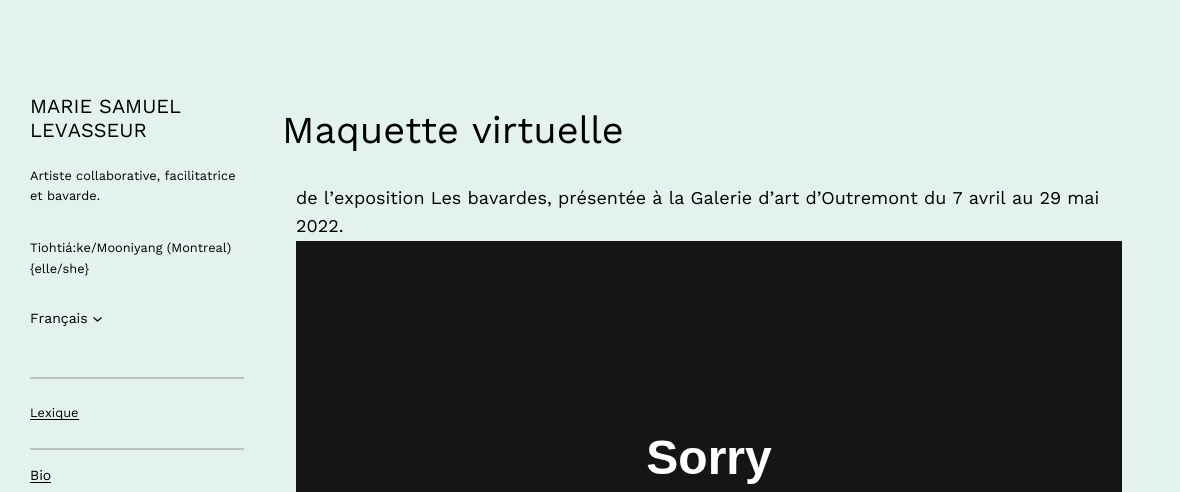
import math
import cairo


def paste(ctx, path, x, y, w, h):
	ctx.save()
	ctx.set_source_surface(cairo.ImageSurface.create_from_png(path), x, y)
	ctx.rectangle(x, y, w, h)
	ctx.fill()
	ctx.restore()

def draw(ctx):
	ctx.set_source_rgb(0.89, 0.949, 0.925)
	ctx.paint()
	ctx.select_font_face('Work Sans')
	ctx.set_font_size(20)
	ctx.set_source_rgb(0, 0, 0)
	ctx.move_to(30, 113)
	ctx.show_text('MARIE SAMUEL')
	ctx.move_to(30, 137)
	ctx.show_text('LEVASSEUR')
	ctx.set_font_size(12.75)
	for x, y, s in [
		(30, 180, 'Artiste collaborative, facilitatrice'),
		(30, 200, 'et bavarde.'),
		(30, 252, 'Tiohtiá:ke/Mooniyang (Montreal)'),
		(30, 273, '{elle/she}'),
	]:
		ctx.move_to(x, y)
		ctx.show_text(s)
	ctx.set_font_size(14)
	ctx.move_to(30, 323)
	ctx.show_text('Français')
	ctx.new_path()
	ctx.move_to(93.5, 317.5)
	ctx.line_to(97.5, 321)
	ctx.line_to(101.5, 317.5)
	ctx.set_line_width(1.3)
	ctx.stroke()
	ctx.set_source_rgb(0.733, 0.769, 0.757)
	ctx.rectangle(30, 377, 214, 2)
	ctx.fill()
	ctx.set_source_rgb(0, 0, 0)
	ctx.rectangle(30, 419, 49, 1)
	ctx.fill()
	ctx.set_font_size(12.75)
	ctx.move_to(30, 417)
	ctx.show_text('Lexique')
	ctx.set_source_rgb(0.733, 0.769, 0.757)
	ctx.rectangle(30, 448, 214, 2)
	ctx.fill()
	ctx.set_font_size(14)
	ctx.set_source_rgb(0, 0, 0)
	ctx.move_to(30, 480)
	ctx.show_text('Bio')
	ctx.rectangle(30, 482, 21, 1)
	ctx.fill()
	ctx.set_font_size(38)
	ctx.move_to(282, 143)
	ctx.show_text('Maquette virtuelle')
	ctx.set_font_size(18)
	ctx.move_to(296, 204)
	ctx.show_text('de l’exposition Les bavardes, présentée à la Galerie d’art d’Outremont du 7 avril au 29 mai')
	ctx.move_to(296, 232)
	ctx.show_text('2022.')
	paste(ctx, 'media/1.png', 296, 241, 826, 251)


surface = cairo.ImageSurface(cairo.FORMAT_RGB24, 1180, 492)
ctx = cairo.Context(surface)
options = cairo.FontOptions()
options.set_hint_metrics(cairo.HINT_METRICS_OFF)
options.set_hint_style(cairo.HINT_STYLE_NONE)
ctx.set_font_options(options)
ctx.set_miter_limit(4)
draw(ctx)
surface.write_to_png('image.png')
